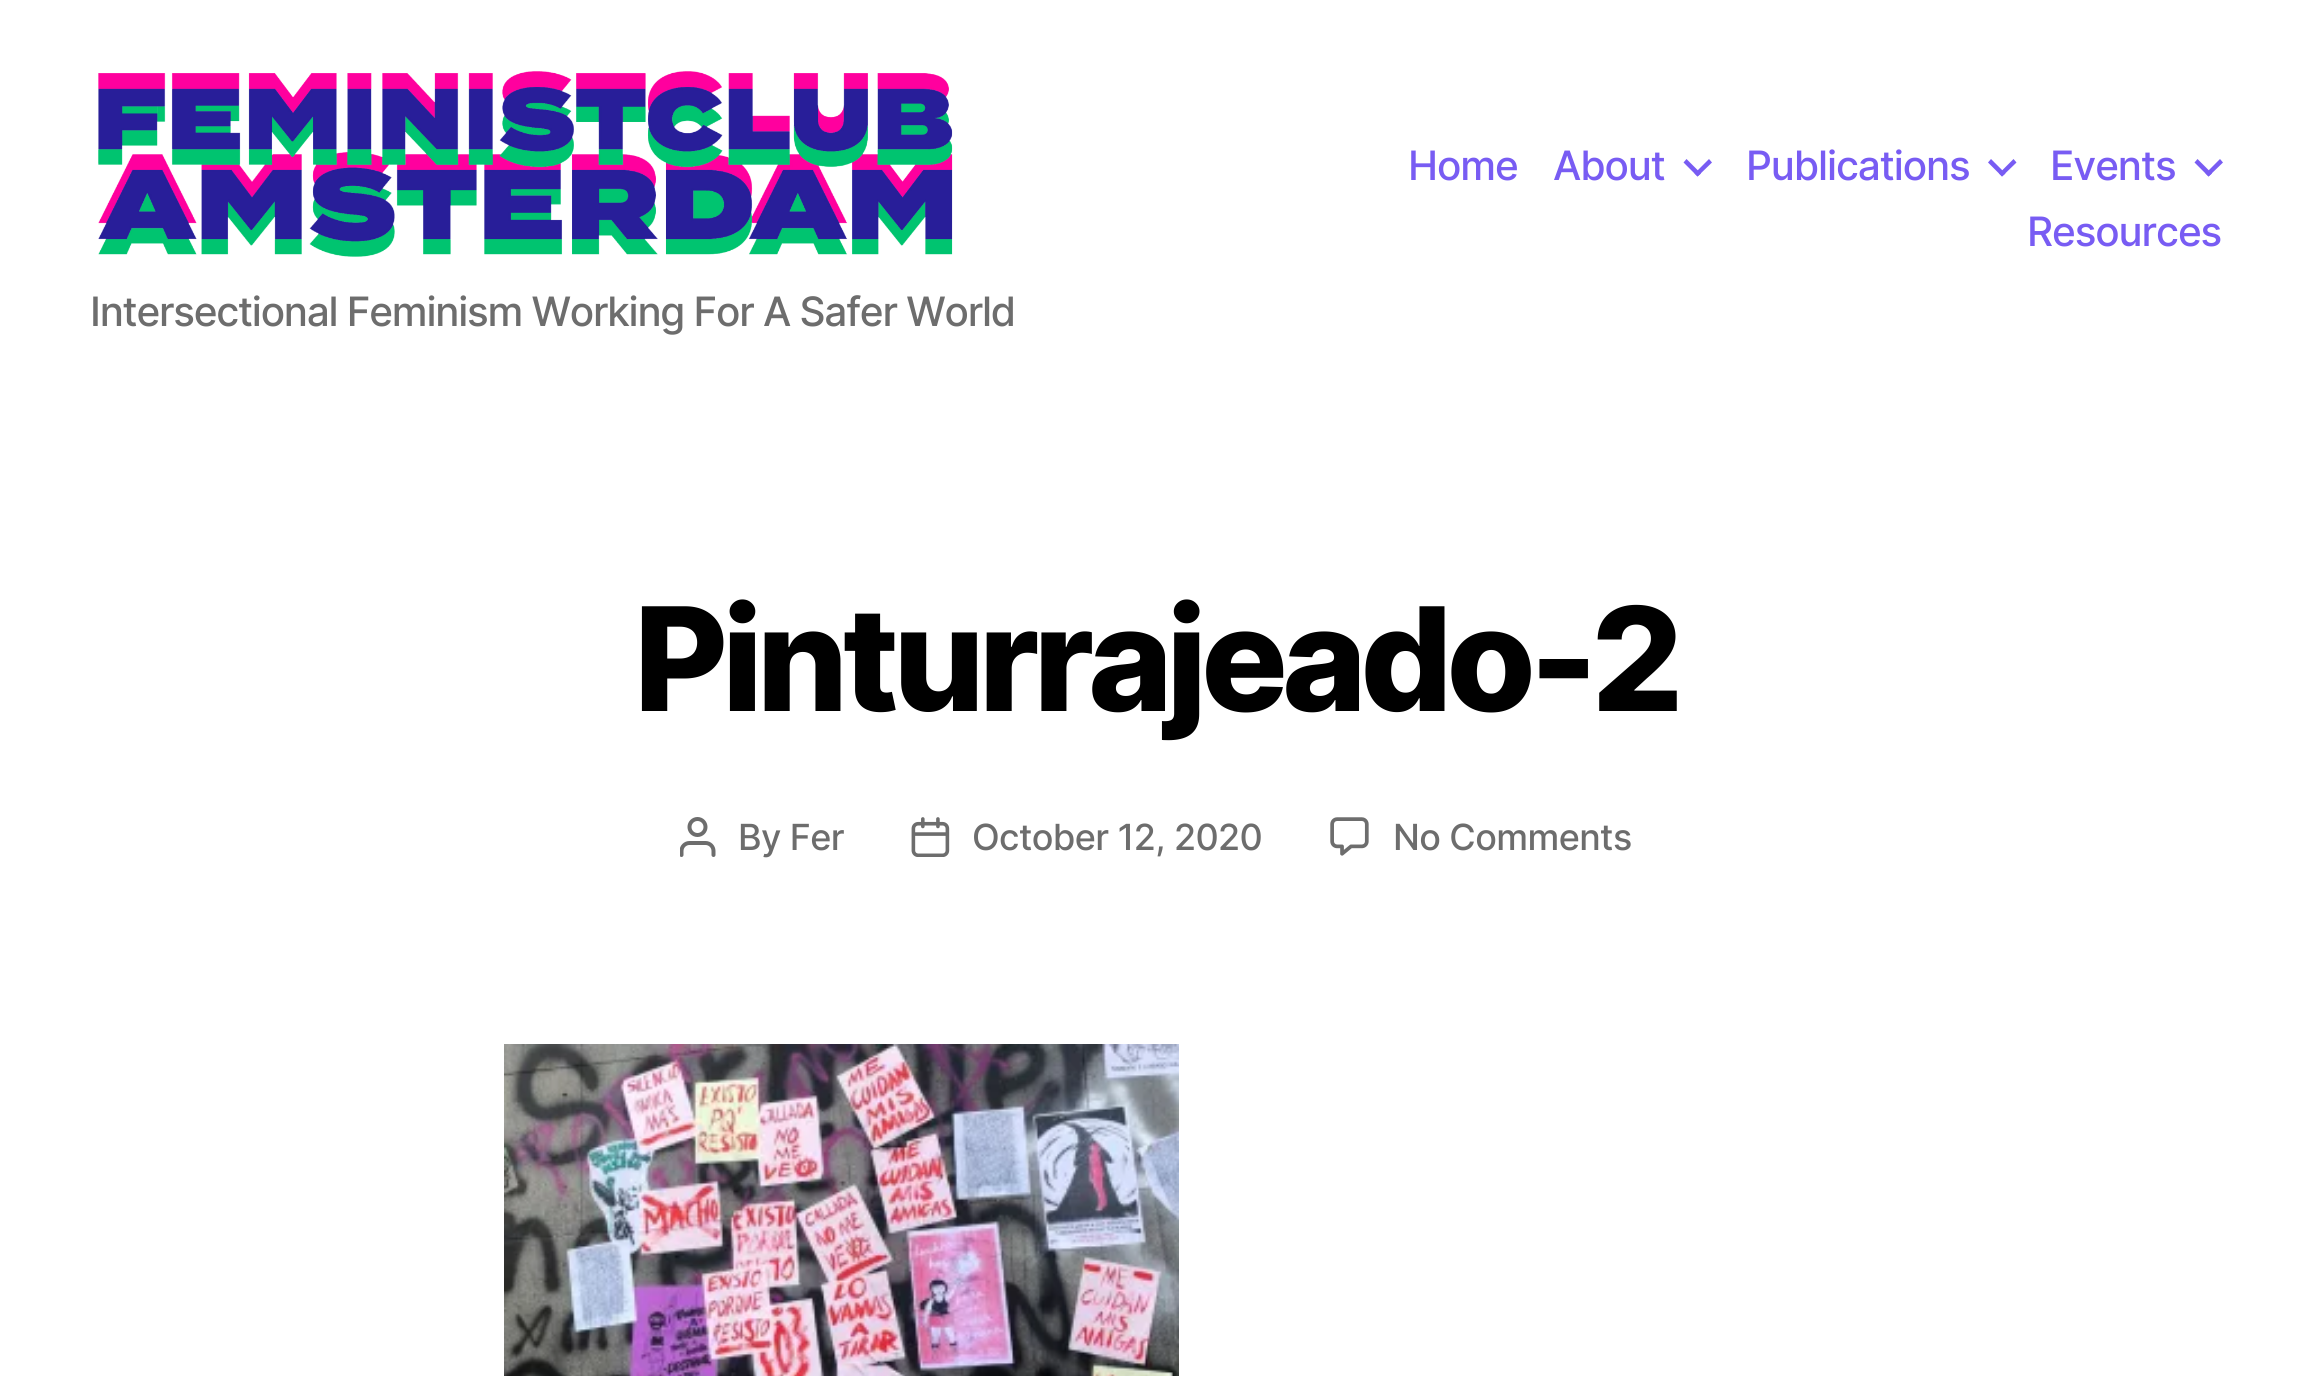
import math
import cairo


def write_spaced(ctx, x, y, s, letter, word):
	ctx.move_to(x, y)
	for ch in s:
		ctx.show_text(ch)
		ctx.rel_move_to(letter + word * (ch == ' '), 0)

def paste(ctx, path, x, y, w, h):
	ctx.save()
	ctx.set_source_surface(cairo.ImageSurface.create_from_png(path), x, y)
	ctx.rectangle(x, y, w, h)
	ctx.fill()
	ctx.restore()

def draw(ctx):
	ctx.set_source_rgb(1, 1, 1)
	ctx.paint()
	ctx.select_font_face('Inter Medium')
	ctx.set_font_size(40.5)
	ctx.set_source_rgb(0.471, 0.361, 0.953)
	write_spaced(ctx, 1408, 180, 'Home', -1.1, 0)
	write_spaced(ctx, 1553, 180, 'About', -1.1, 0)
	ctx.new_path()
	ctx.move_to(1683.5, 162.5)
	ctx.line_to(1686.5, 159)
	ctx.line_to(1701, 173.5)
	ctx.line_to(1697.5, 176.5)
	ctx.close_path()
	ctx.fill()
	ctx.new_path()
	ctx.move_to(1694.5, 173.5)
	ctx.line_to(1709, 159)
	ctx.line_to(1712, 162.5)
	ctx.line_to(1697.5, 176.5)
	ctx.close_path()
	ctx.fill()
	write_spaced(ctx, 1746, 180, 'Publications', -1.1, 0)
	ctx.new_path()
	ctx.move_to(1988, 162.5)
	ctx.line_to(1991, 159)
	ctx.line_to(2005.5, 173.5)
	ctx.line_to(2002, 176.5)
	ctx.close_path()
	ctx.fill()
	ctx.new_path()
	ctx.move_to(1999, 173.5)
	ctx.line_to(2013.5, 159)
	ctx.line_to(2016.5, 162.5)
	ctx.line_to(2002, 176.5)
	ctx.close_path()
	ctx.fill()
	write_spaced(ctx, 2050, 180, 'Events', -1.1, 0)
	ctx.new_path()
	ctx.move_to(2194.5, 162.5)
	ctx.line_to(2197.5, 159)
	ctx.line_to(2212, 173.5)
	ctx.line_to(2208.5, 176.5)
	ctx.close_path()
	ctx.fill()
	ctx.new_path()
	ctx.move_to(2205.5, 173.5)
	ctx.line_to(2220, 159)
	ctx.line_to(2223, 162.5)
	ctx.line_to(2208.5, 176.5)
	ctx.close_path()
	ctx.fill()
	write_spaced(ctx, 2027, 246, 'Resources', -1.1, 0)
	paste(ctx, 'media/1.png', 98, 71, 855, 186)
	ctx.set_source_rgb(0.427, 0.427, 0.427)
	write_spaced(ctx, 90, 326, 'Intersectional Feminism Working For A Safer World', -1.25, 0)
	ctx.select_font_face('Inter ExtraBold')
	ctx.set_font_size(144)
	ctx.set_source_rgb(0, 0, 0)
	write_spaced(ctx, 634, 711, 'Pinturrajeado-2', -6, 0)
	paste(ctx, 'media/2.png', 680, 817, 36, 40)
	ctx.select_font_face('Inter Medium')
	ctx.set_font_size(36)
	ctx.set_source_rgb(0.427, 0.427, 0.427)
	write_spaced(ctx, 738, 850, 'By Fer', -0.6, 0)
	paste(ctx, 'media/3.png', 911, 817, 39, 40)
	write_spaced(ctx, 972, 850, 'October 12, 2020', -0.6, 0)
	paste(ctx, 'media/4.png', 1330, 817, 39, 39)
	write_spaced(ctx, 1393, 850, 'No Comments', -0.6, 0)
	paste(ctx, 'media/5.png', 504, 1044, 675, 332)


surface = cairo.ImageSurface(cairo.FORMAT_RGB24, 2310, 1376)
ctx = cairo.Context(surface)
options = cairo.FontOptions()
options.set_hint_metrics(cairo.HINT_METRICS_OFF)
options.set_hint_style(cairo.HINT_STYLE_NONE)
ctx.set_font_options(options)
ctx.set_miter_limit(4)
draw(ctx)
surface.write_to_png('image.png')
